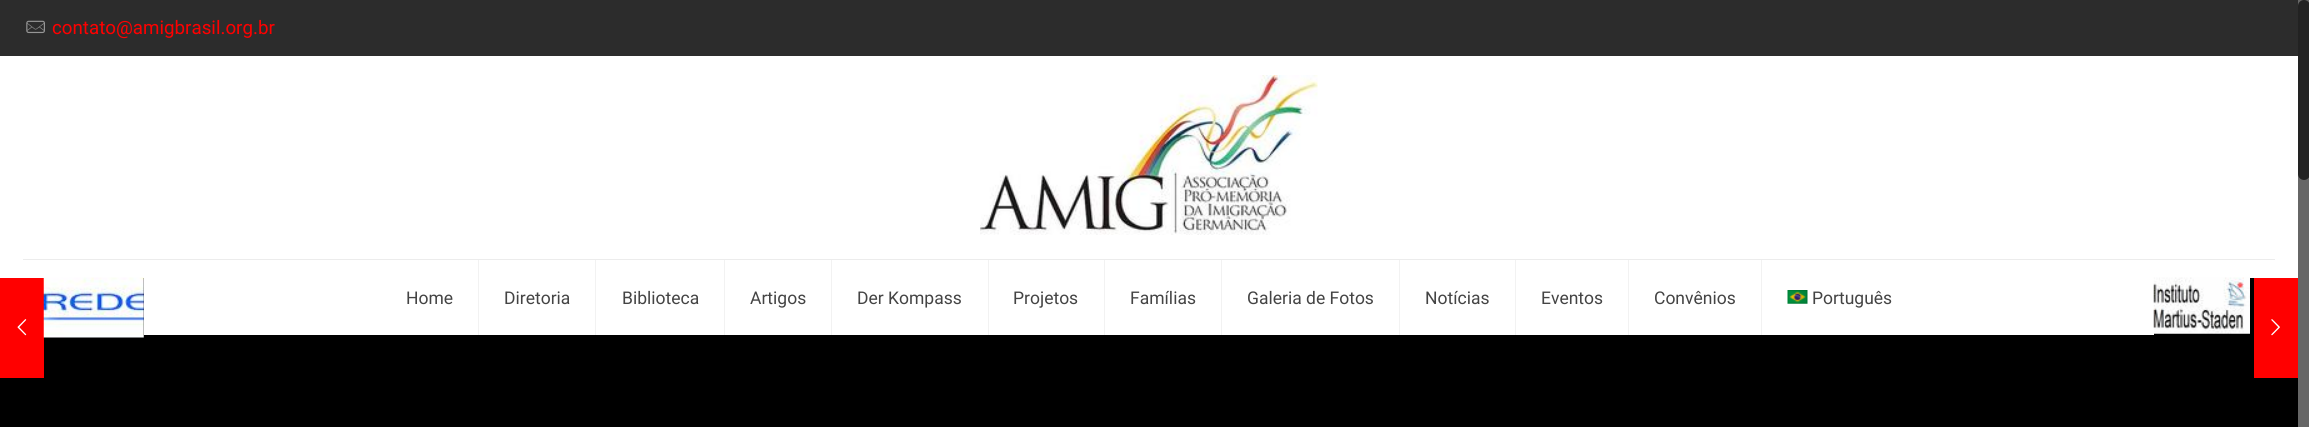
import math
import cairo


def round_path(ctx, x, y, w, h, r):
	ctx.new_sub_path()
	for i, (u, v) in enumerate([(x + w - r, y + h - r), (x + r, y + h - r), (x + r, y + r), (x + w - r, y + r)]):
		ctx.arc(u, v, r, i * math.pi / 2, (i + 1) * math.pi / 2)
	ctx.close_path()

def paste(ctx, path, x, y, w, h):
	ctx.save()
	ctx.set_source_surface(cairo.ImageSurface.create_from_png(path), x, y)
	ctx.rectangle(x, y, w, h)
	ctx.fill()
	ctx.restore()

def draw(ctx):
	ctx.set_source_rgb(0, 0, 0)
	ctx.paint()
	ctx.set_source_rgb(0.173, 0.173, 0.173)
	ctx.rectangle(0, 0, 2298, 56)
	ctx.fill()
	paste(ctx, 'media/1.png', 26, 20, 19, 14)
	ctx.select_font_face('Roboto')
	ctx.set_font_size(18.75)
	ctx.set_source_rgb(1, 0, 0)
	ctx.move_to(52, 34)
	ctx.show_text('contato@amigbrasil.org.br')
	ctx.set_source_rgb(1, 1, 1)
	ctx.rectangle(0, 56, 2298, 279)
	ctx.fill()
	ctx.set_source_rgb(0.922, 0.922, 0.922)
	ctx.rectangle(23, 259, 2252, 1)
	ctx.fill()
	paste(ctx, 'media/2.png', 980, 75, 338, 160)
	ctx.set_source_rgb(0.949, 0.949, 0.949)
	ctx.rectangle(478, 260, 1, 75)
	ctx.fill()
	ctx.set_font_size(17.5)
	ctx.set_source_rgb(0.267, 0.267, 0.267)
	ctx.move_to(406, 304)
	ctx.show_text('Home')
	ctx.set_source_rgb(0.949, 0.949, 0.949)
	ctx.rectangle(595, 260, 1, 75)
	ctx.fill()
	ctx.set_source_rgb(0.267, 0.267, 0.267)
	ctx.move_to(504, 304)
	ctx.show_text('Diretoria')
	ctx.set_source_rgb(0.949, 0.949, 0.949)
	ctx.rectangle(724, 260, 1, 75)
	ctx.fill()
	ctx.set_source_rgb(0.267, 0.267, 0.267)
	ctx.move_to(622, 304)
	ctx.show_text('Biblioteca')
	ctx.set_source_rgb(0.949, 0.949, 0.949)
	ctx.rectangle(831, 260, 1, 75)
	ctx.fill()
	ctx.set_source_rgb(0.267, 0.267, 0.267)
	ctx.move_to(750, 304)
	ctx.show_text('Artigos')
	ctx.set_source_rgb(0.949, 0.949, 0.949)
	ctx.rectangle(988, 260, 1, 75)
	ctx.fill()
	ctx.set_source_rgb(0.267, 0.267, 0.267)
	ctx.move_to(857, 304)
	ctx.show_text('Der Kompass')
	ctx.set_source_rgb(0.949, 0.949, 0.949)
	ctx.rectangle(1104, 260, 1, 75)
	ctx.fill()
	ctx.set_source_rgb(0.267, 0.267, 0.267)
	ctx.move_to(1013, 304)
	ctx.show_text('Projetos')
	ctx.set_source_rgb(0.949, 0.949, 0.949)
	ctx.rectangle(1221, 260, 1, 75)
	ctx.fill()
	ctx.set_source_rgb(0.267, 0.267, 0.267)
	ctx.move_to(1130, 304)
	ctx.show_text('Famílias')
	ctx.set_source_rgb(0.949, 0.949, 0.949)
	ctx.rectangle(1399, 260, 1, 75)
	ctx.fill()
	ctx.set_source_rgb(0.267, 0.267, 0.267)
	ctx.move_to(1247, 304)
	ctx.show_text('Galeria de Fotos')
	ctx.set_source_rgb(0.949, 0.949, 0.949)
	ctx.rectangle(1515, 260, 1, 75)
	ctx.fill()
	ctx.set_source_rgb(0.267, 0.267, 0.267)
	ctx.move_to(1425, 304)
	ctx.show_text('Notícias')
	ctx.set_source_rgb(0.949, 0.949, 0.949)
	ctx.rectangle(1628, 260, 1, 75)
	ctx.fill()
	ctx.set_source_rgb(0.267, 0.267, 0.267)
	ctx.move_to(1541, 304)
	ctx.show_text('Eventos')
	ctx.set_source_rgb(0.949, 0.949, 0.949)
	ctx.rectangle(1761, 260, 1, 75)
	ctx.fill()
	ctx.set_source_rgb(0.267, 0.267, 0.267)
	ctx.move_to(1654, 304)
	ctx.show_text('Convênios')
	paste(ctx, 'media/3.png', 1787, 290, 21, 14)
	ctx.move_to(1812, 304)
	ctx.show_text('Português')
	ctx.set_source_rgb(0.4, 0.4, 0.4)
	ctx.rectangle(2298, 0, 11, 427)
	ctx.fill()
	ctx.set_source_rgb(0.133, 0.133, 0.133)
	round_path(ctx, 2298, 0, 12, 180, 6)
	ctx.fill()
	ctx.set_source_rgb(1, 0, 0)
	ctx.rectangle(0, 278, 44, 100)
	ctx.fill()
	paste(ctx, 'media/4.png', 17, 319, 10, 17)
	ctx.set_source_rgb(0, 0, 0)
	ctx.rectangle(44, 278, 100, 57)
	ctx.fill()
	paste(ctx, 'media/5.png', 43, 277, 101, 61)
	ctx.rectangle(2154, 278, 100, 57)
	ctx.fill()
	paste(ctx, 'media/6.png', 2153, 277, 97, 57)
	ctx.set_source_rgb(1, 0, 0)
	ctx.rectangle(2254, 278, 44, 100)
	ctx.fill()
	paste(ctx, 'media/7.png', 2271, 319, 9, 17)


surface = cairo.ImageSurface(cairo.FORMAT_RGB24, 2309, 427)
ctx = cairo.Context(surface)
options = cairo.FontOptions()
options.set_hint_metrics(cairo.HINT_METRICS_OFF)
options.set_hint_style(cairo.HINT_STYLE_NONE)
ctx.set_font_options(options)
ctx.set_miter_limit(4)
draw(ctx)
surface.write_to_png('image.png')
